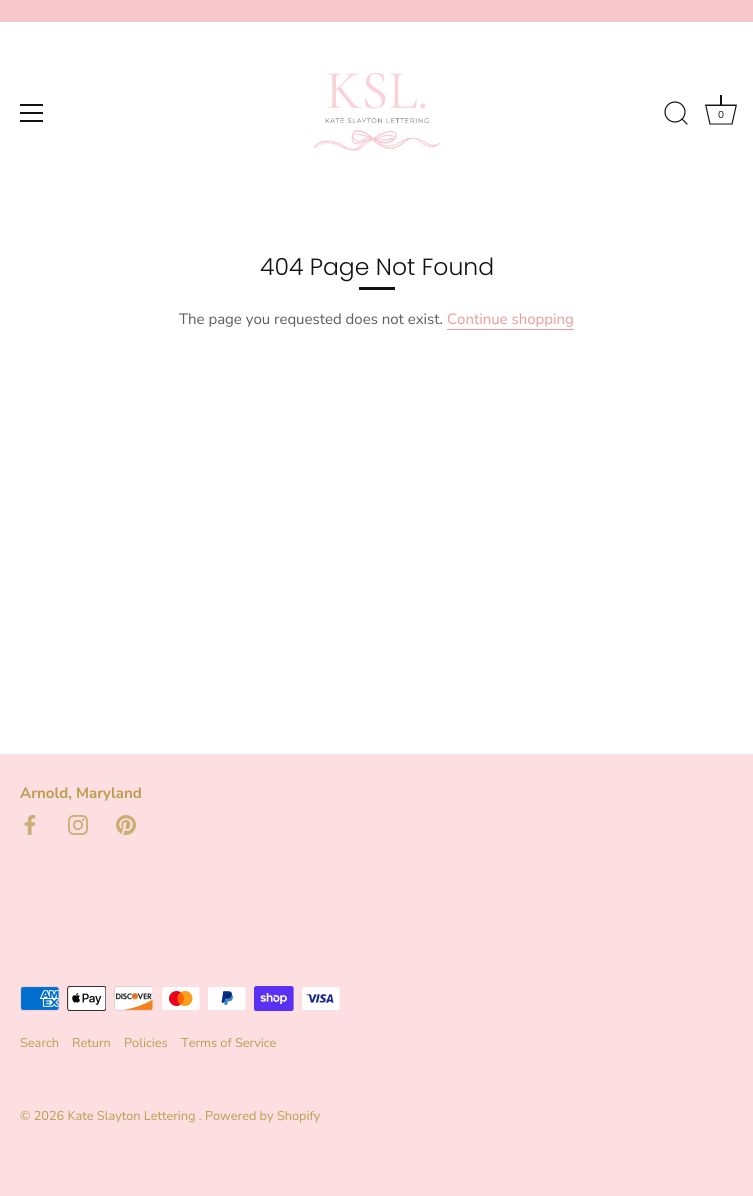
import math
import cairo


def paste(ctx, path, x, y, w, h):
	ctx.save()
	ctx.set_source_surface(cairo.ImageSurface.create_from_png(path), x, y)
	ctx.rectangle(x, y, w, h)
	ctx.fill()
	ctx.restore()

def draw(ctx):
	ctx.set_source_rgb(1, 1, 1)
	ctx.paint()
	ctx.set_source_rgb(0.965, 0.78, 0.796)
	ctx.rectangle(0, 0, 753, 22)
	ctx.fill()
	ctx.set_source_rgb(0.071, 0.067, 0.067)
	ctx.rectangle(20, 104, 23, 2)
	ctx.rectangle(20, 112, 23, 2)
	ctx.rectangle(20, 120, 23, 2)
	ctx.fill()
	paste(ctx, 'media/1.png', 314, 73, 126, 78)
	ctx.arc(675, 112, 10, 0, 2 * math.pi)
	ctx.set_line_width(1.2)
	ctx.stroke()
	ctx.new_path()
	ctx.move_to(687, 124)
	ctx.line_to(682, 119)
	ctx.set_line_cap(cairo.LINE_CAP_ROUND)
	ctx.set_line_join(cairo.LINE_JOIN_ROUND)
	ctx.stroke()
	ctx.new_path()
	ctx.move_to(735.5, 106)
	ctx.line_to(731.5, 123.5)
	ctx.line_to(710.5, 123.5)
	ctx.line_to(706.5, 106)
	ctx.line_to(735.5, 106)
	ctx.move_to(737, 104.5)
	ctx.line_to(705, 104.5)
	ctx.line_to(709.5, 124.5)
	ctx.line_to(732.5, 124.5)
	ctx.close_path()
	ctx.fill()
	ctx.rectangle(720, 95, 2, 10)
	ctx.fill()
	ctx.select_font_face('Nunito Sans')
	ctx.set_font_size(10)
	ctx.move_to(718, 118)
	ctx.show_text('0')
	ctx.select_font_face('Poppins Light')
	ctx.set_font_size(23.5)
	ctx.move_to(260, 275)
	ctx.show_text('404 Page Not Found')
	ctx.rectangle(359, 287, 36, 3)
	ctx.fill()
	ctx.select_font_face('Nunito Sans')
	ctx.set_font_size(15)
	ctx.set_source_rgb(0.369, 0.361, 0.361)
	ctx.move_to(179, 324)
	ctx.show_text('The page you requested does not exist.')
	ctx.set_source_rgb(0.937, 0.604, 0.604)
	ctx.move_to(447, 324)
	ctx.show_text('Continue shopping')
	ctx.rectangle(447, 329, 127, 1)
	ctx.fill()
	ctx.set_source_rgb(0.992, 0.875, 0.882)
	ctx.rectangle(0, 754, 753, 442)
	ctx.fill()
	ctx.select_font_face('Nunito Sans', cairo.FONT_SLANT_NORMAL, cairo.FONT_WEIGHT_BOLD)
	ctx.set_source_rgb(0.729, 0.616, 0.306)
	ctx.move_to(20, 798)
	ctx.show_text('Arnold, Maryland')
	paste(ctx, 'media/2.png', 24, 815, 12, 20)
	paste(ctx, 'media/3.png', 68, 815, 20, 20)
	paste(ctx, 'media/4.png', 116, 815, 20, 20)
	paste(ctx, 'media/5.png', 20, 986, 40, 25)
	paste(ctx, 'media/6.png', 67, 986, 39, 25)
	paste(ctx, 'media/7.png', 114, 986, 39, 25)
	paste(ctx, 'media/8.png', 162, 987, 38, 23)
	paste(ctx, 'media/9.png', 208, 987, 38, 23)
	paste(ctx, 'media/10.png', 254, 986, 40, 25)
	paste(ctx, 'media/11.png', 302, 987, 38, 23)
	ctx.select_font_face('Nunito Sans')
	ctx.set_font_size(12.75)
	for x, y, s in [
		(20, 1047, 'Search'),
		(72, 1047, 'Return'),
		(124, 1047, 'Policies'),
		(181, 1047, 'Terms of Service'),
		(20, 1120, '© 2026 Kate Slayton Lettering . Powered by Shopify'),
	]:
		ctx.move_to(x, y)
		ctx.show_text(s)


surface = cairo.ImageSurface(cairo.FORMAT_RGB24, 753, 1196)
ctx = cairo.Context(surface)
options = cairo.FontOptions()
options.set_hint_metrics(cairo.HINT_METRICS_OFF)
options.set_hint_style(cairo.HINT_STYLE_NONE)
ctx.set_font_options(options)
ctx.set_miter_limit(4)
draw(ctx)
surface.write_to_png('image.png')
